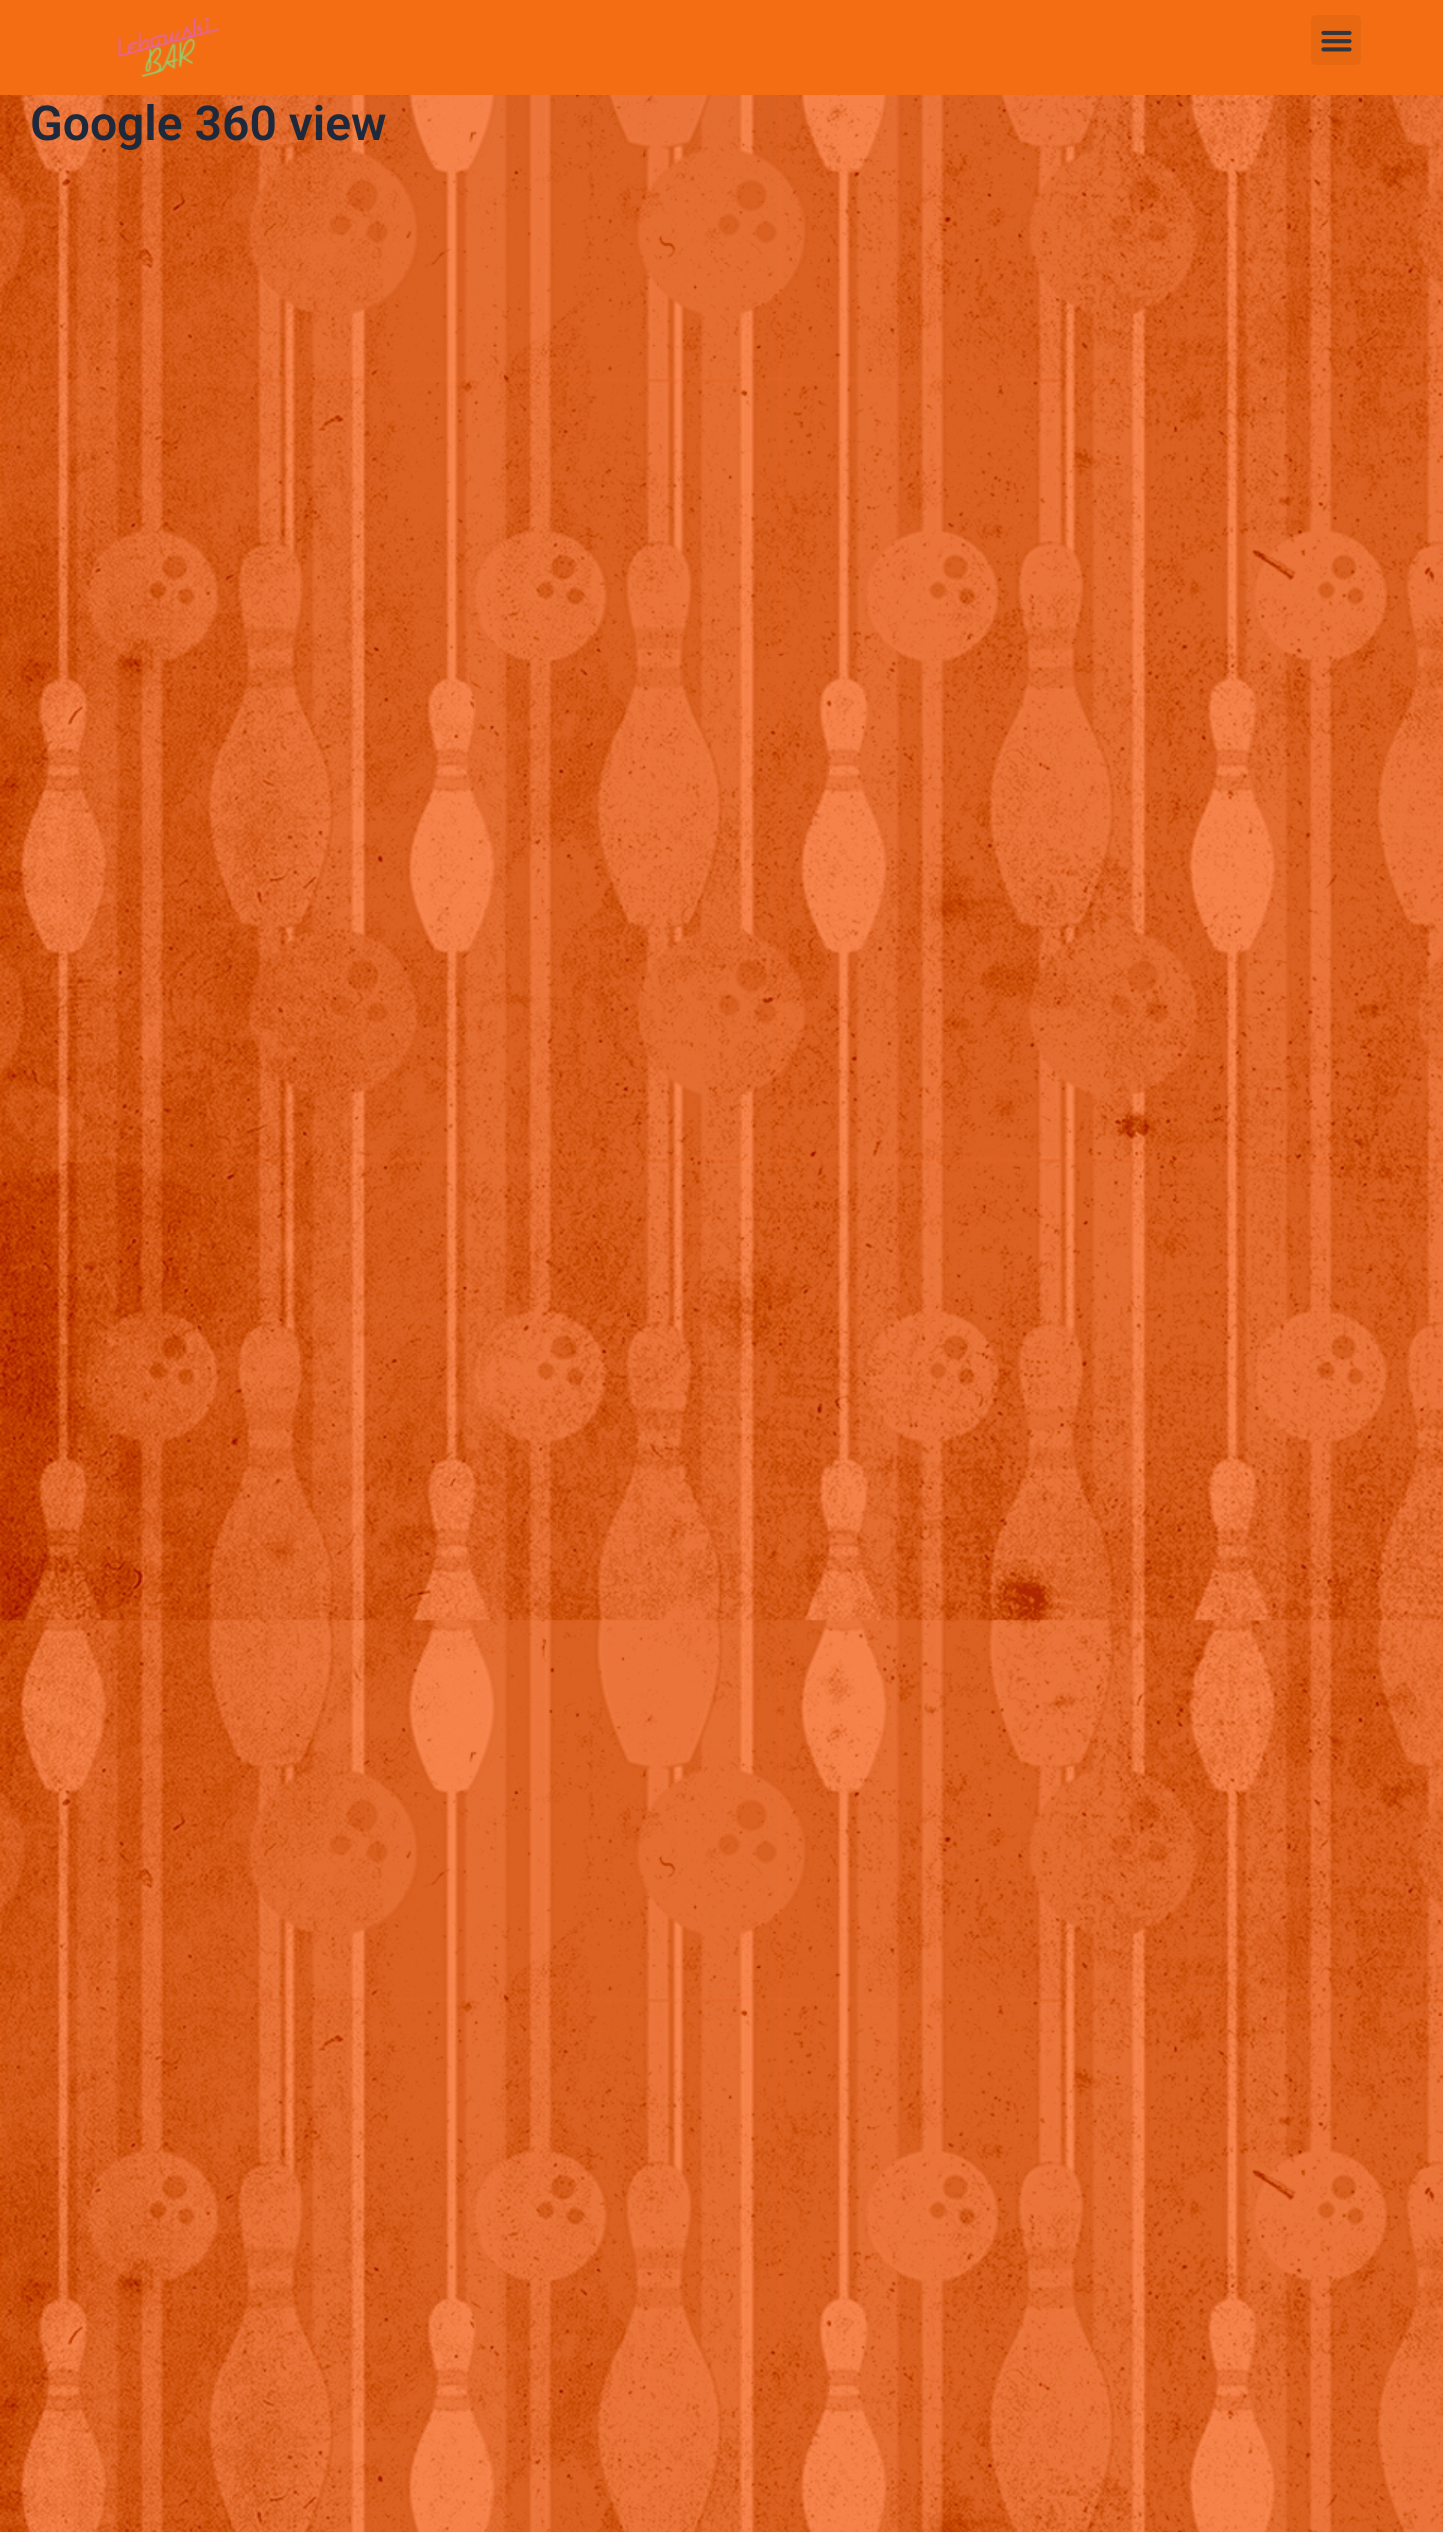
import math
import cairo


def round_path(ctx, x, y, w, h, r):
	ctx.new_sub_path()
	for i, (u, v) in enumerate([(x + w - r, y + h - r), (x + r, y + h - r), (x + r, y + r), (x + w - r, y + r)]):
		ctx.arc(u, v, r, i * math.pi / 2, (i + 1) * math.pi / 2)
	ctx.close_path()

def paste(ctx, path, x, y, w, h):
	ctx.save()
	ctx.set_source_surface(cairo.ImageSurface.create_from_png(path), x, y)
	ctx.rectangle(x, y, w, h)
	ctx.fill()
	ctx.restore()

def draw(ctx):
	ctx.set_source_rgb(1, 1, 1)
	ctx.paint()
	paste(ctx, 'media/1.png', 0, 95, 1443, 2437)
	ctx.set_source_rgb(0.957, 0.427, 0.075)
	ctx.rectangle(0, 0, 1443, 95)
	ctx.fill()
	paste(ctx, 'media/2.png', 118, 17, 102, 61)
	ctx.set_source_rgb(0.91, 0.408, 0.071)
	round_path(ctx, 1311, 15, 50, 50, 5)
	ctx.fill()
	paste(ctx, 'media/3.png', 1321, 30, 31, 22)
	ctx.select_font_face('Roboto SemiBold')
	ctx.set_font_size(48)
	ctx.set_source_rgb(0.118, 0.161, 0.231)
	ctx.move_to(30, 140)
	ctx.show_text('Google 360 view')


surface = cairo.ImageSurface(cairo.FORMAT_RGB24, 1443, 2532)
ctx = cairo.Context(surface)
options = cairo.FontOptions()
options.set_hint_metrics(cairo.HINT_METRICS_OFF)
options.set_hint_style(cairo.HINT_STYLE_NONE)
ctx.set_font_options(options)
ctx.set_miter_limit(4)
draw(ctx)
surface.write_to_png('image.png')
